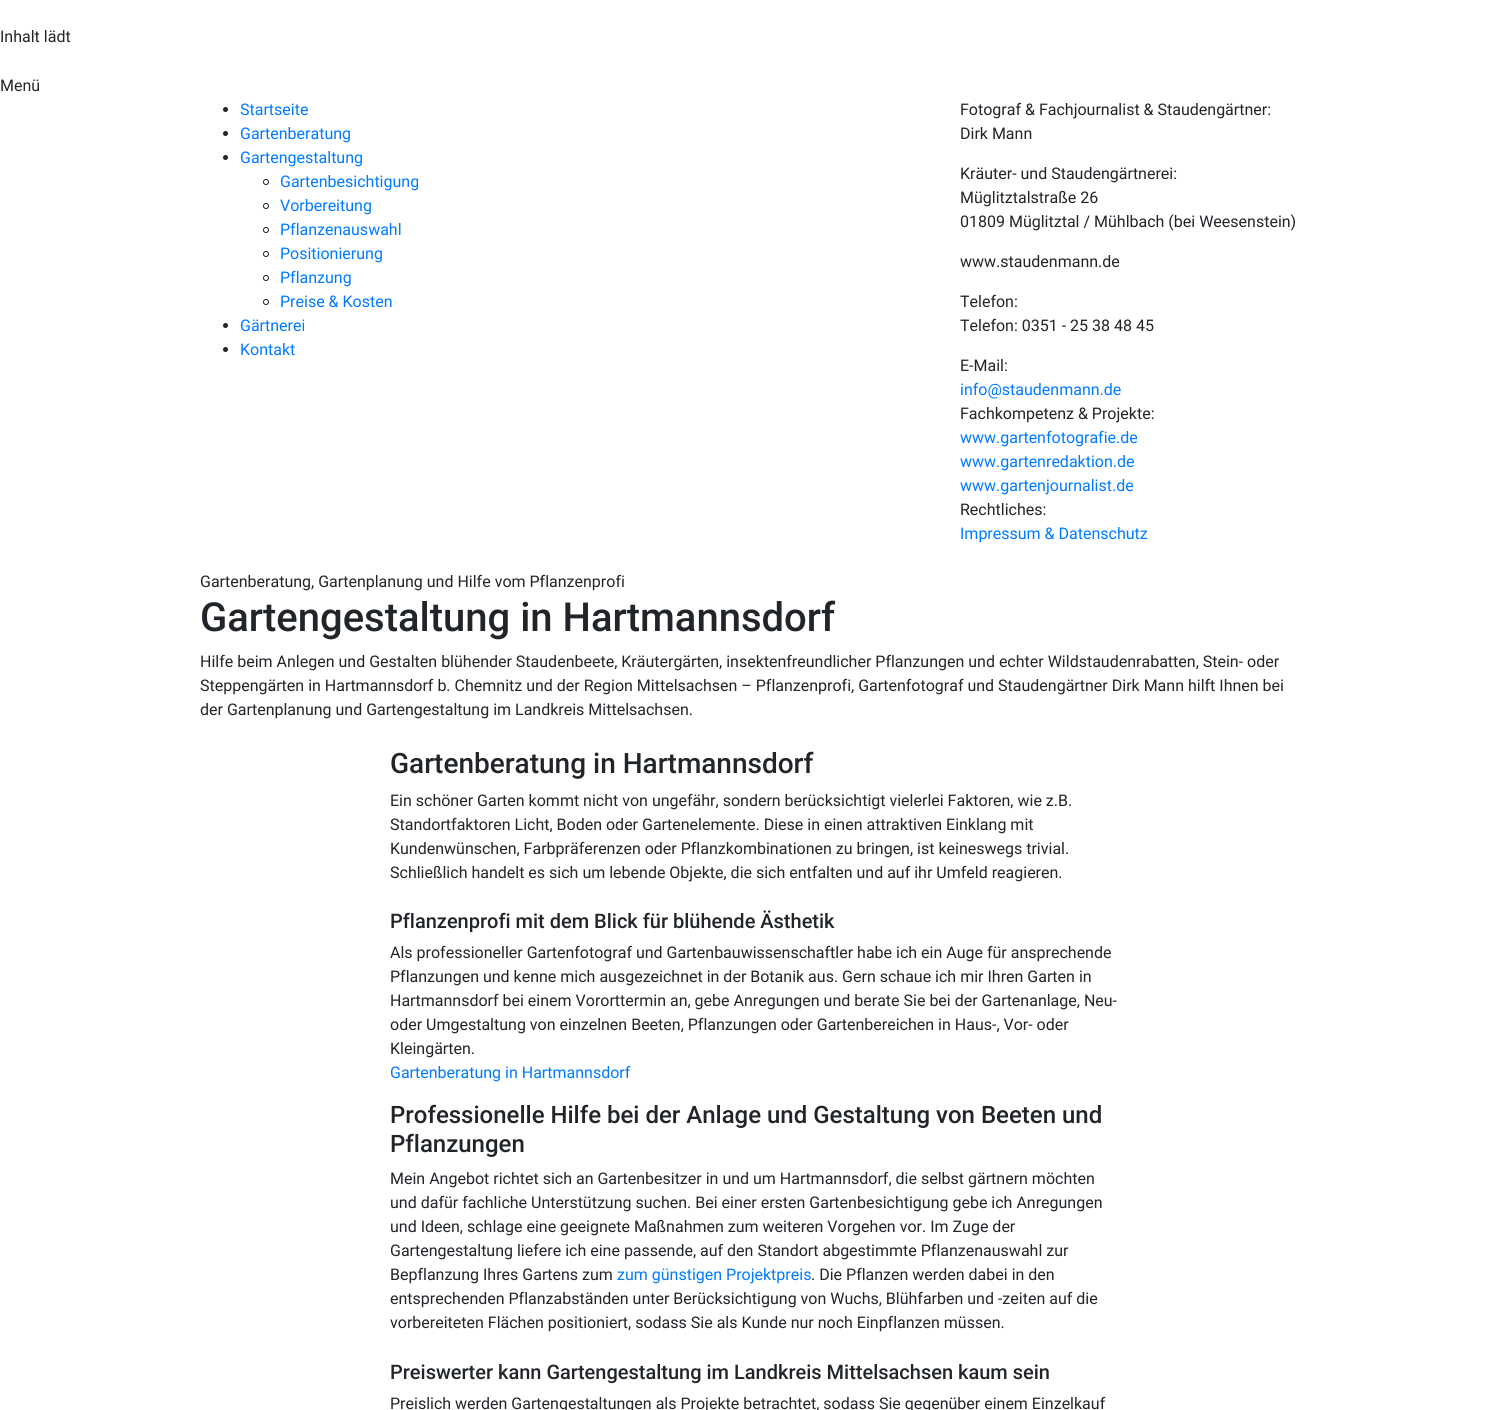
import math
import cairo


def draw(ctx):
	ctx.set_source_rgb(1, 1, 1)
	ctx.paint()
	ctx.select_font_face('Roboto')
	ctx.set_font_size(16)
	ctx.set_source_rgb(0.129, 0.145, 0.161)
	ctx.move_to(0, 42)
	ctx.show_text('Inhalt lädt')
	ctx.move_to(0, 91)
	ctx.show_text('Menü')
	ctx.new_path()
	ctx.arc(225.5, 109.5, 2.5, 0, 2 * math.pi)
	ctx.fill()
	ctx.set_source_rgb(0, 0.482, 1)
	ctx.move_to(240, 115)
	ctx.show_text('Startseite')
	ctx.set_source_rgb(0.129, 0.145, 0.161)
	ctx.new_path()
	ctx.arc(225.5, 133.5, 2.5, 0, 2 * math.pi)
	ctx.fill()
	ctx.set_source_rgb(0, 0.482, 1)
	ctx.move_to(240, 139)
	ctx.show_text('Gartenberatung')
	ctx.set_source_rgb(0.129, 0.145, 0.161)
	ctx.new_path()
	ctx.arc(225.5, 157.5, 2.5, 0, 2 * math.pi)
	ctx.fill()
	ctx.set_source_rgb(0, 0.482, 1)
	ctx.move_to(240, 163)
	ctx.show_text('Gartengestaltung')
	ctx.new_path()
	ctx.arc(266, 182, 2.5, 0, 2 * math.pi)
	ctx.set_source_rgb(0.129, 0.145, 0.161)
	ctx.set_line_width(1)
	ctx.stroke()
	ctx.set_source_rgb(0, 0.482, 1)
	ctx.move_to(280, 187)
	ctx.show_text('Gartenbesichtigung')
	ctx.new_path()
	ctx.arc(266, 206, 2.5, 0, 2 * math.pi)
	ctx.set_source_rgb(0.129, 0.145, 0.161)
	ctx.stroke()
	ctx.set_source_rgb(0, 0.482, 1)
	ctx.move_to(280, 211)
	ctx.show_text('Vorbereitung')
	ctx.new_path()
	ctx.arc(266, 230, 2.5, 0, 2 * math.pi)
	ctx.set_source_rgb(0.129, 0.145, 0.161)
	ctx.stroke()
	ctx.set_source_rgb(0, 0.482, 1)
	ctx.move_to(280, 235)
	ctx.show_text('Pflanzenauswahl')
	ctx.new_path()
	ctx.arc(266, 254, 2.5, 0, 2 * math.pi)
	ctx.set_source_rgb(0.129, 0.145, 0.161)
	ctx.stroke()
	ctx.set_source_rgb(0, 0.482, 1)
	ctx.move_to(280, 259)
	ctx.show_text('Positionierung')
	ctx.new_path()
	ctx.arc(266, 278, 2.5, 0, 2 * math.pi)
	ctx.set_source_rgb(0.129, 0.145, 0.161)
	ctx.stroke()
	ctx.set_source_rgb(0, 0.482, 1)
	ctx.move_to(280, 283)
	ctx.show_text('Pflanzung')
	ctx.new_path()
	ctx.arc(266, 302, 2.5, 0, 2 * math.pi)
	ctx.set_source_rgb(0.129, 0.145, 0.161)
	ctx.stroke()
	ctx.set_source_rgb(0, 0.482, 1)
	ctx.move_to(280, 307)
	ctx.show_text('Preise & Kosten')
	ctx.set_source_rgb(0.129, 0.145, 0.161)
	ctx.new_path()
	ctx.arc(225.5, 325.5, 2.5, 0, 2 * math.pi)
	ctx.fill()
	ctx.set_source_rgb(0, 0.482, 1)
	ctx.move_to(240, 331)
	ctx.show_text('Gärtnerei')
	ctx.set_source_rgb(0.129, 0.145, 0.161)
	ctx.new_path()
	ctx.arc(225.5, 349.5, 2.5, 0, 2 * math.pi)
	ctx.fill()
	ctx.set_source_rgb(0, 0.482, 1)
	ctx.move_to(240, 355)
	ctx.show_text('Kontakt')
	ctx.set_source_rgb(0.129, 0.145, 0.161)
	for x, y, s in [
		(960, 115, 'Fotograf & Fachjournalist & Staudengärtner:'),
		(960, 139, 'Dirk Mann'),
		(960, 179, 'Kräuter- und Staudengärtnerei:'),
		(960, 203, 'Müglitztalstraße 26'),
		(960, 227, '01809 Müglitztal / Mühlbach (bei Weesenstein)'),
		(960, 267, 'www.staudenmann.de'),
		(960, 307, 'Telefon:'),
		(960, 331, 'Telefon: 0351 - 25 38 48 45'),
		(960, 371, 'E-Mail:'),
	]:
		ctx.move_to(x, y)
		ctx.show_text(s)
	ctx.set_source_rgb(0, 0.482, 1)
	ctx.move_to(960, 395)
	ctx.show_text('info@staudenmann.de')
	ctx.set_source_rgb(0.129, 0.145, 0.161)
	ctx.move_to(960, 419)
	ctx.show_text('Fachkompetenz & Projekte:')
	ctx.set_source_rgb(0, 0.482, 1)
	for x, y, s in [
		(960, 443, 'www.gartenfotografie.de'),
		(960, 467, 'www.gartenredaktion.de'),
		(960, 491, 'www.gartenjournalist.de'),
	]:
		ctx.move_to(x, y)
		ctx.show_text(s)
	ctx.set_source_rgb(0.129, 0.145, 0.161)
	ctx.move_to(960, 515)
	ctx.show_text('Rechtliches:')
	ctx.set_source_rgb(0, 0.482, 1)
	ctx.move_to(960, 539)
	ctx.show_text('Impressum & Datenschutz')
	ctx.set_source_rgb(0.129, 0.145, 0.161)
	ctx.move_to(200, 587)
	ctx.show_text('Gartenberatung, Gartenplanung und Hilfe vom Pflanzenprofi')
	ctx.select_font_face('Roboto Medium')
	ctx.set_font_size(40)
	ctx.move_to(200, 631)
	ctx.show_text('Gartengestaltung in Hartmannsdorf')
	ctx.select_font_face('Roboto')
	ctx.set_font_size(16)
	for x, y, s in [
		(200, 667, 'Hilfe beim Anlegen und Gestalten blühender Staudenbeete, Kräutergärten, insektenfreundlicher Pflanzungen und echter Wildstaudenrabatten, Stein- oder'),
		(200, 691, 'Steppengärten in Hartmannsdorf b. Chemnitz und der Region Mittelsachsen – Pflanzenprofi, Gartenfotograf und Staudengärtner Dirk Mann hilft Ihnen bei'),
		(200, 715, 'der Gartenplanung und Gartengestaltung im Landkreis Mittelsachsen.'),
	]:
		ctx.move_to(x, y)
		ctx.show_text(s)
	ctx.select_font_face('Roboto Medium')
	ctx.set_font_size(28)
	ctx.move_to(390, 773)
	ctx.show_text('Gartenberatung in Hartmannsdorf')
	ctx.select_font_face('Roboto')
	ctx.set_font_size(16)
	for x, y, s in [
		(390, 806, 'Ein schöner Garten kommt nicht von ungefähr, sondern berücksichtigt vielerlei Faktoren, wie z.B.'),
		(390, 830, 'Standortfaktoren Licht, Boden oder Gartenelemente. Diese in einen attraktiven Einklang mit'),
		(390, 854, 'Kundenwünschen, Farbpräferenzen oder Pflanzkombinationen zu bringen, ist keineswegs trivial.'),
		(390, 878, 'Schließlich handelt es sich um lebende Objekte, die sich entfalten und auf ihr Umfeld reagieren.'),
	]:
		ctx.move_to(x, y)
		ctx.show_text(s)
	ctx.select_font_face('Roboto Medium')
	ctx.set_font_size(20)
	ctx.move_to(390, 928)
	ctx.show_text('Pflanzenprofi mit dem Blick für blühende Ästhetik')
	ctx.select_font_face('Roboto')
	ctx.set_font_size(16)
	for x, y, s in [
		(390, 958, 'Als professioneller Gartenfotograf und Gartenbauwissenschaftler habe ich ein Auge für ansprechende'),
		(390, 982, 'Pflanzungen und kenne mich ausgezeichnet in der Botanik aus. Gern schaue ich mir Ihren Garten in'),
		(390, 1006, 'Hartmannsdorf bei einem Vororttermin an, gebe Anregungen und berate Sie bei der Gartenanlage, Neu-'),
		(390, 1030, 'oder Umgestaltung von einzelnen Beeten, Pflanzungen oder Gartenbereichen in Haus-, Vor- oder'),
		(390, 1054, 'Kleingärten.'),
	]:
		ctx.move_to(x, y)
		ctx.show_text(s)
	ctx.set_source_rgb(0, 0.482, 1)
	ctx.move_to(390, 1078)
	ctx.show_text('Gartenberatung in Hartmannsdorf')
	ctx.select_font_face('Roboto Medium')
	ctx.set_font_size(24)
	ctx.set_source_rgb(0.129, 0.145, 0.161)
	ctx.move_to(390, 1123)
	ctx.show_text('Professionelle Hilfe bei der Anlage und Gestaltung von Beeten und')
	ctx.move_to(390, 1152)
	ctx.show_text('Pflanzungen')
	ctx.select_font_face('Roboto')
	ctx.set_font_size(16)
	for x, y, s in [
		(390, 1184, 'Mein Angebot richtet sich an Gartenbesitzer in und um Hartmannsdorf, die selbst gärtnern möchten'),
		(390, 1208, 'und dafür fachliche Unterstützung suchen. Bei einer ersten Gartenbesichtigung gebe ich Anregungen'),
		(390, 1232, 'und Ideen, schlage eine geeignete Maßnahmen zum weiteren Vorgehen vor. Im Zuge der'),
		(390, 1256, 'Gartengestaltung liefere ich eine passende, auf den Standort abgestimmte Pflanzenauswahl zur'),
		(390, 1280, 'Bepflanzung Ihres Gartens zum'),
	]:
		ctx.move_to(x, y)
		ctx.show_text(s)
	ctx.set_source_rgb(0, 0.482, 1)
	ctx.move_to(617, 1280)
	ctx.show_text('zum günstigen Projektpreis')
	ctx.set_source_rgb(0.129, 0.145, 0.161)
	for x, y, s in [
		(811, 1280, '. Die Pflanzen werden dabei in den'),
		(390, 1304, 'entsprechenden Pflanzabständen unter Berücksichtigung von Wuchs, Blühfarben und -zeiten auf die'),
		(390, 1328, 'vorbereiteten Flächen positioniert, sodass Sie als Kunde nur noch Einpflanzen müssen.'),
	]:
		ctx.move_to(x, y)
		ctx.show_text(s)
	ctx.select_font_face('Roboto Medium')
	ctx.set_font_size(20)
	ctx.move_to(390, 1379)
	ctx.show_text('Preiswerter kann Gartengestaltung im Landkreis Mittelsachsen kaum sein')
	ctx.select_font_face('Roboto')
	ctx.set_font_size(16)
	ctx.move_to(390, 1409)
	ctx.show_text('Preislich werden Gartengestaltungen als Projekte betrachtet, sodass Sie gegenüber einem Einzelkauf')


surface = cairo.ImageSurface(cairo.FORMAT_RGB24, 1510, 1410)
ctx = cairo.Context(surface)
options = cairo.FontOptions()
options.set_hint_metrics(cairo.HINT_METRICS_OFF)
options.set_hint_style(cairo.HINT_STYLE_NONE)
ctx.set_font_options(options)
ctx.set_miter_limit(4)
draw(ctx)
surface.write_to_png('image.png')
